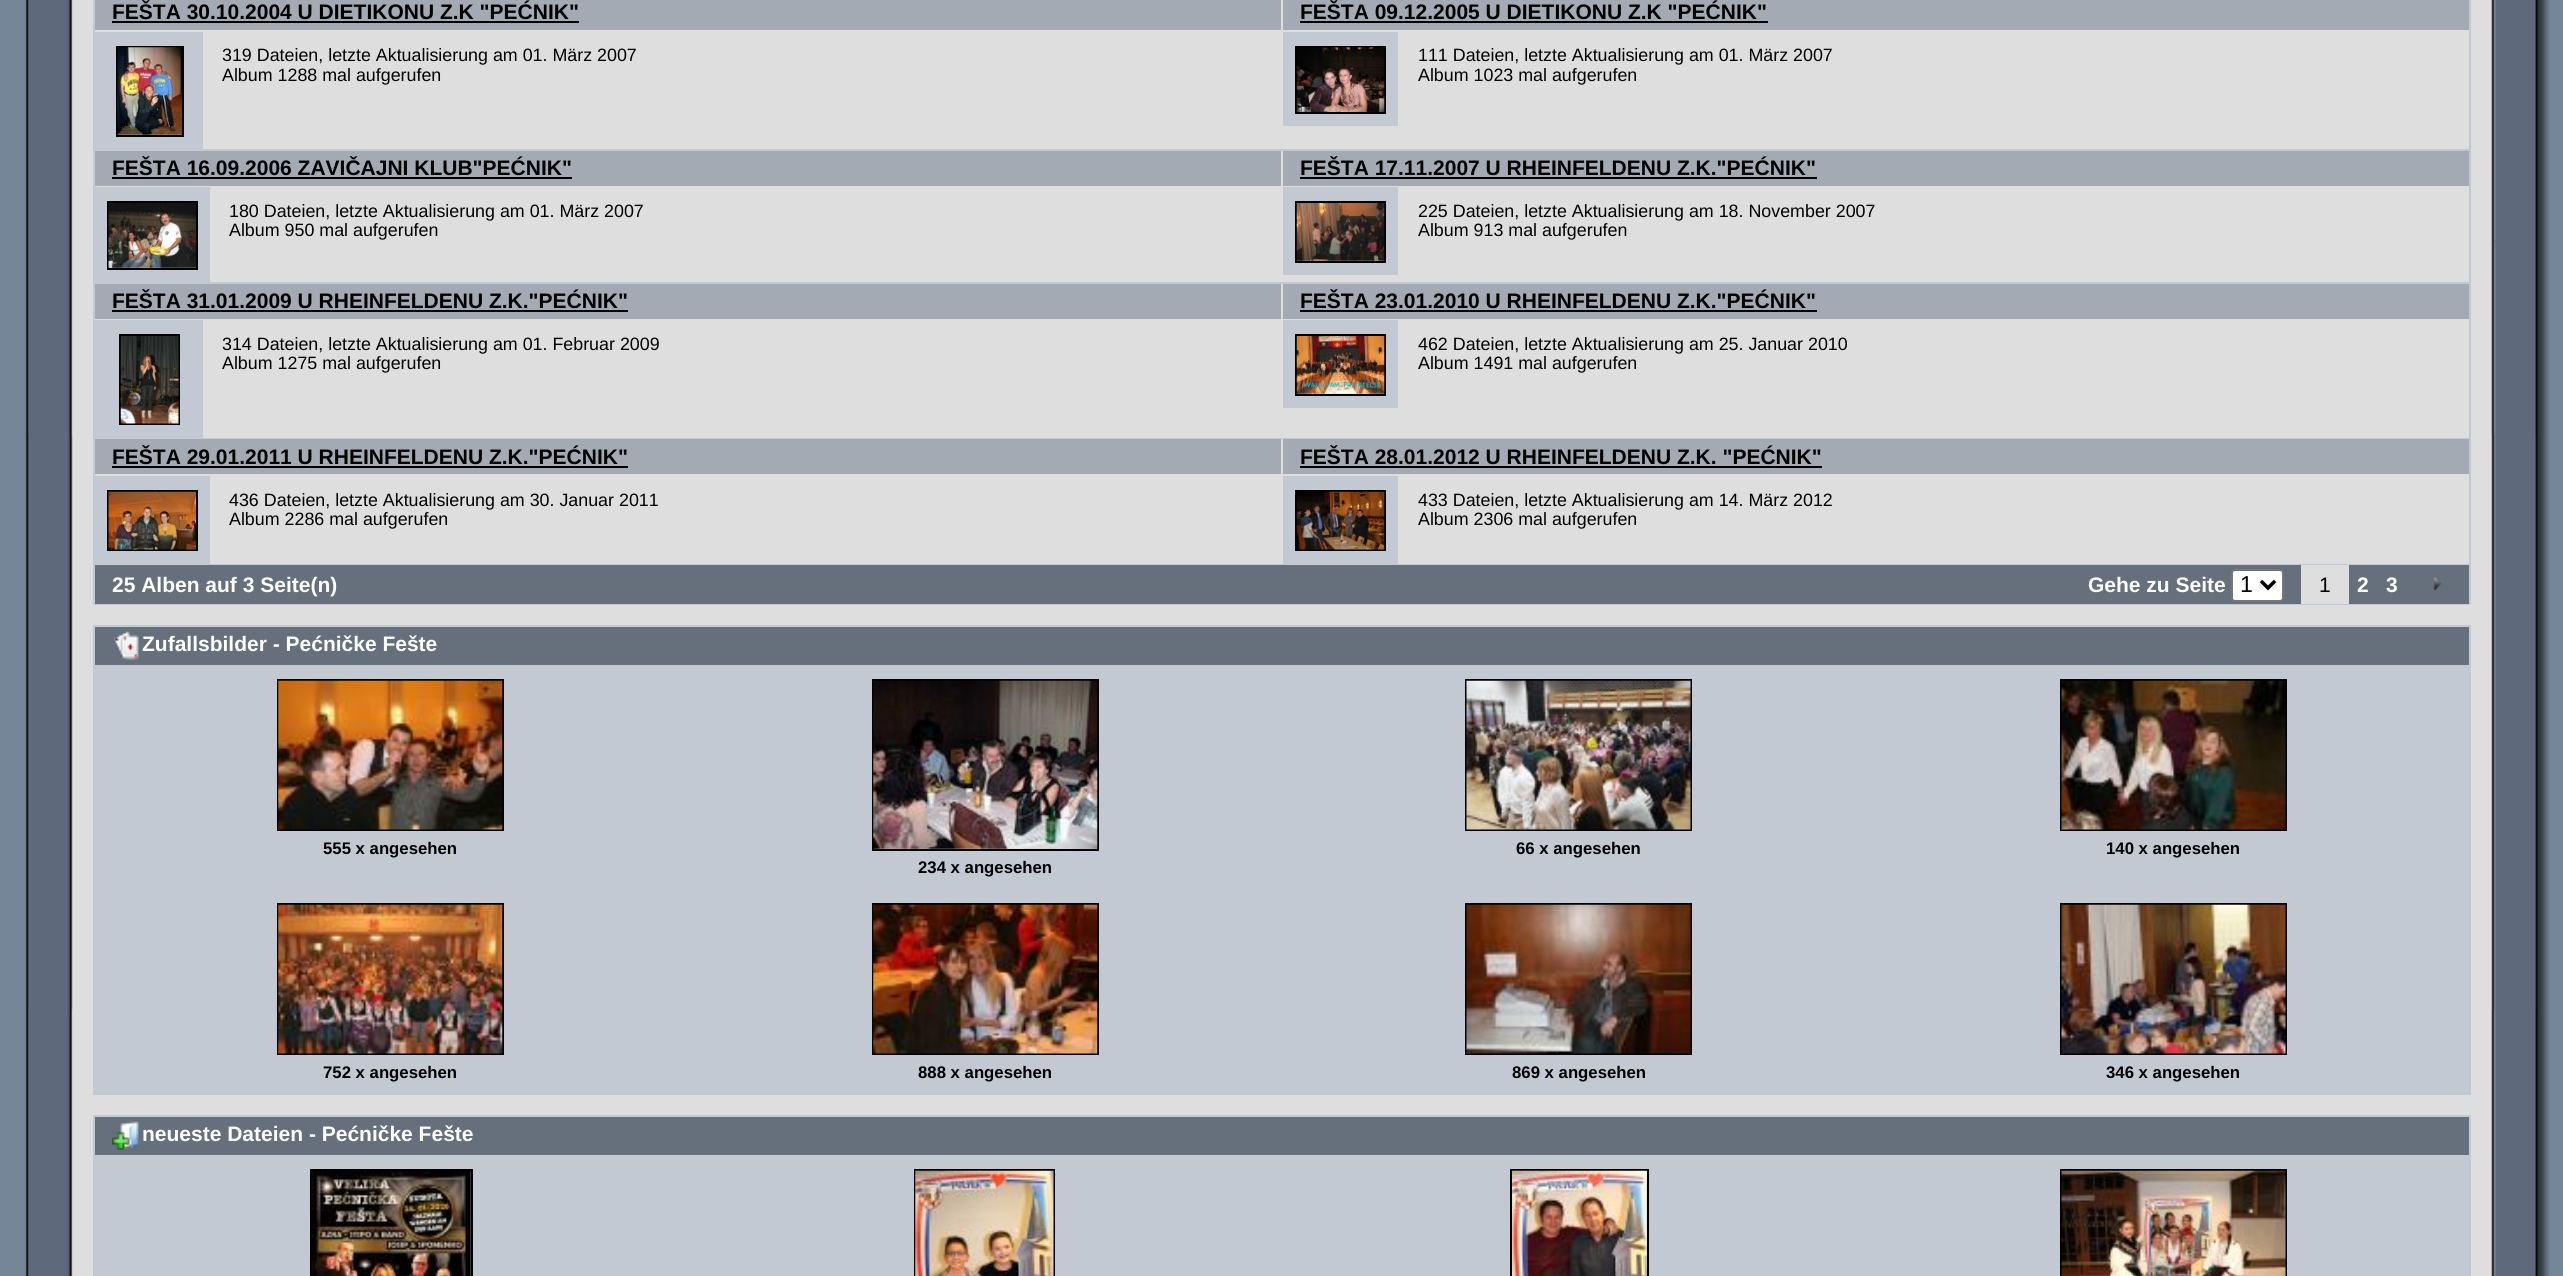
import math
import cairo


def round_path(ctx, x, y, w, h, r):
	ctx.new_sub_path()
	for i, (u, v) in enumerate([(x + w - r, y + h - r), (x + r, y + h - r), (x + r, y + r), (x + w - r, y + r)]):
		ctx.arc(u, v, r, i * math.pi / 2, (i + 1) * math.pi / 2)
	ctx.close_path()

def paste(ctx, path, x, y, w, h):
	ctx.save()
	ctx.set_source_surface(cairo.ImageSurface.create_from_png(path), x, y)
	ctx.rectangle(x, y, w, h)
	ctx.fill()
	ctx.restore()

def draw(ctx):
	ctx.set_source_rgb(0.459, 0.525, 0.596)
	ctx.paint()
	paste(ctx, 'media/1.png', 25, 0, 48, 1276)
	paste(ctx, 'media/2.png', 28, 436, 45, 574)
	ctx.set_source_rgb(0.871, 0.871, 0.871)
	ctx.rectangle(73, 0, 2418, 1276)
	ctx.fill()
	ctx.set_source_rgb(0.761, 0.788, 0.827)
	ctx.rectangle(93, 0, 2378, 605)
	ctx.fill()
	ctx.set_source_rgb(0.871, 0.871, 0.871)
	ctx.rectangle(95, 0, 2374, 149)
	ctx.fill()
	ctx.set_source_rgb(0.639, 0.667, 0.706)
	ctx.rectangle(95, 0, 1186, 30)
	ctx.fill()
	ctx.select_font_face('Liberation Sans', cairo.FONT_SLANT_NORMAL, cairo.FONT_WEIGHT_BOLD)
	ctx.set_font_size(21)
	ctx.set_source_rgb(0, 0, 0)
	ctx.move_to(112, 19)
	ctx.show_text('FEŠTA 30.10.2004 U DIETIKONU Z.K "PEĆNIK"')
	ctx.rectangle(112, 21, 467, 2)
	ctx.fill()
	ctx.set_source_rgb(0.761, 0.788, 0.827)
	ctx.rectangle(95, 32, 108, 117)
	ctx.fill()
	ctx.rectangle(117, 47, 66, 89)
	ctx.set_source_rgb(0, 0, 0)
	ctx.stroke()
	paste(ctx, 'media/3.png', 117, 47, 65, 88)
	ctx.select_font_face('Liberation Sans')
	ctx.set_font_size(17.85)
	ctx.move_to(222, 61)
	ctx.show_text('319 Dateien, letzte Aktualisierung am 01. März 2007')
	ctx.move_to(222, 81)
	ctx.show_text('Album 1288 mal aufgerufen')
	ctx.set_source_rgb(0.639, 0.667, 0.706)
	ctx.rectangle(1283, 0, 1186, 30)
	ctx.fill()
	ctx.select_font_face('Liberation Sans', cairo.FONT_SLANT_NORMAL, cairo.FONT_WEIGHT_BOLD)
	ctx.set_font_size(21)
	ctx.set_source_rgb(0, 0, 0)
	ctx.move_to(1300, 19)
	ctx.show_text('FEŠTA 09.12.2005 U DIETIKONU Z.K "PEĆNIK"')
	ctx.rectangle(1300, 21, 468, 2)
	ctx.fill()
	ctx.set_source_rgb(0.761, 0.788, 0.827)
	ctx.rectangle(1283, 32, 115, 94)
	ctx.fill()
	ctx.rectangle(1296, 47, 89, 66)
	ctx.set_source_rgb(0, 0, 0)
	ctx.stroke()
	paste(ctx, 'media/4.png', 1296, 47, 89, 65)
	ctx.select_font_face('Liberation Sans')
	ctx.set_font_size(17.85)
	ctx.move_to(1418, 61)
	ctx.show_text('111 Dateien, letzte Aktualisierung am 01. März 2007')
	ctx.move_to(1418, 81)
	ctx.show_text('Album 1023 mal aufgerufen')
	ctx.set_source_rgb(0.871, 0.871, 0.871)
	ctx.rectangle(95, 151, 2374, 131)
	ctx.fill()
	ctx.set_source_rgb(0.639, 0.667, 0.706)
	ctx.rectangle(95, 151, 1186, 35)
	ctx.fill()
	ctx.select_font_face('Liberation Sans', cairo.FONT_SLANT_NORMAL, cairo.FONT_WEIGHT_BOLD)
	ctx.set_font_size(21)
	ctx.set_source_rgb(0, 0, 0)
	ctx.move_to(112, 175)
	ctx.show_text('FEŠTA 16.09.2006 ZAVIČAJNI KLUB"PEĆNIK"')
	ctx.rectangle(112, 177, 460, 2)
	ctx.fill()
	ctx.set_source_rgb(0.761, 0.788, 0.827)
	ctx.rectangle(95, 187, 115, 95)
	ctx.fill()
	ctx.rectangle(108, 202, 89, 67)
	ctx.set_source_rgb(0, 0, 0)
	ctx.stroke()
	paste(ctx, 'media/5.png', 108, 203, 88, 65)
	ctx.select_font_face('Liberation Sans')
	ctx.set_font_size(17.85)
	ctx.move_to(229, 217)
	ctx.show_text('180 Dateien, letzte Aktualisierung am 01. März 2007')
	ctx.move_to(229, 236)
	ctx.show_text('Album 950 mal aufgerufen')
	ctx.set_source_rgb(0.639, 0.667, 0.706)
	ctx.rectangle(1283, 151, 1186, 35)
	ctx.fill()
	ctx.select_font_face('Liberation Sans', cairo.FONT_SLANT_NORMAL, cairo.FONT_WEIGHT_BOLD)
	ctx.set_font_size(21)
	ctx.set_source_rgb(0, 0, 0)
	ctx.move_to(1300, 175)
	ctx.show_text('FEŠTA 17.11.2007 U RHEINFELDENU Z.K."PEĆNIK"')
	ctx.rectangle(1300, 177, 517, 2)
	ctx.fill()
	ctx.set_source_rgb(0.761, 0.788, 0.827)
	ctx.rectangle(1283, 187, 115, 88)
	ctx.fill()
	ctx.rectangle(1296, 202, 89, 60)
	ctx.set_source_rgb(0, 0, 0)
	ctx.stroke()
	paste(ctx, 'media/6.png', 1296, 203, 89, 58)
	ctx.select_font_face('Liberation Sans')
	ctx.set_font_size(17.85)
	ctx.move_to(1418, 217)
	ctx.show_text('225 Dateien, letzte Aktualisierung am 18. November 2007')
	ctx.move_to(1418, 236)
	ctx.show_text('Album 913 mal aufgerufen')
	ctx.set_source_rgb(0.871, 0.871, 0.871)
	ctx.rectangle(95, 284, 2374, 154)
	ctx.fill()
	ctx.set_source_rgb(0.639, 0.667, 0.706)
	ctx.rectangle(95, 284, 1186, 35)
	ctx.fill()
	ctx.select_font_face('Liberation Sans', cairo.FONT_SLANT_NORMAL, cairo.FONT_WEIGHT_BOLD)
	ctx.set_font_size(21)
	ctx.set_source_rgb(0, 0, 0)
	ctx.move_to(112, 308)
	ctx.show_text('FEŠTA 31.01.2009 U RHEINFELDENU Z.K."PEĆNIK"')
	ctx.rectangle(112, 310, 516, 2)
	ctx.fill()
	ctx.set_source_rgb(0.761, 0.788, 0.827)
	ctx.rectangle(95, 320, 108, 118)
	ctx.fill()
	ctx.rectangle(120, 335, 59, 89)
	ctx.set_source_rgb(0, 0, 0)
	ctx.stroke()
	paste(ctx, 'media/7.png', 120, 336, 59, 88)
	ctx.select_font_face('Liberation Sans')
	ctx.set_font_size(17.85)
	ctx.move_to(222, 350)
	ctx.show_text('314 Dateien, letzte Aktualisierung am 01. Februar 2009')
	ctx.move_to(222, 369)
	ctx.show_text('Album 1275 mal aufgerufen')
	ctx.set_source_rgb(0.639, 0.667, 0.706)
	ctx.rectangle(1283, 284, 1186, 35)
	ctx.fill()
	ctx.select_font_face('Liberation Sans', cairo.FONT_SLANT_NORMAL, cairo.FONT_WEIGHT_BOLD)
	ctx.set_font_size(21)
	ctx.set_source_rgb(0, 0, 0)
	ctx.move_to(1300, 308)
	ctx.show_text('FEŠTA 23.01.2010 U RHEINFELDENU Z.K."PEĆNIK"')
	ctx.rectangle(1300, 310, 517, 2)
	ctx.fill()
	ctx.set_source_rgb(0.761, 0.788, 0.827)
	ctx.rectangle(1283, 320, 115, 88)
	ctx.fill()
	ctx.rectangle(1296, 335, 89, 60)
	ctx.set_source_rgb(0, 0, 0)
	ctx.stroke()
	paste(ctx, 'media/8.png', 1296, 336, 89, 58)
	ctx.select_font_face('Liberation Sans')
	ctx.set_font_size(17.85)
	ctx.move_to(1418, 350)
	ctx.show_text('462 Dateien, letzte Aktualisierung am 25. Januar 2010')
	ctx.move_to(1418, 369)
	ctx.show_text('Album 1491 mal aufgerufen')
	ctx.set_source_rgb(0.871, 0.871, 0.871)
	ctx.rectangle(95, 439, 2374, 125)
	ctx.fill()
	ctx.set_source_rgb(0.639, 0.667, 0.706)
	ctx.rectangle(95, 439, 1186, 35)
	ctx.fill()
	ctx.select_font_face('Liberation Sans', cairo.FONT_SLANT_NORMAL, cairo.FONT_WEIGHT_BOLD)
	ctx.set_font_size(21)
	ctx.set_source_rgb(0, 0, 0)
	ctx.move_to(112, 464)
	ctx.show_text('FEŠTA 29.01.2011 U RHEINFELDENU Z.K."PEĆNIK"')
	ctx.rectangle(112, 466, 516, 2)
	ctx.fill()
	ctx.set_source_rgb(0.761, 0.788, 0.827)
	ctx.rectangle(95, 476, 115, 88)
	ctx.fill()
	ctx.rectangle(108, 491, 89, 59)
	ctx.set_source_rgb(0, 0, 0)
	ctx.stroke()
	paste(ctx, 'media/9.png', 108, 491, 88, 59)
	ctx.select_font_face('Liberation Sans')
	ctx.set_font_size(17.85)
	ctx.move_to(229, 506)
	ctx.show_text('436 Dateien, letzte Aktualisierung am 30. Januar 2011')
	ctx.move_to(229, 525)
	ctx.show_text('Album 2286 mal aufgerufen')
	ctx.set_source_rgb(0.639, 0.667, 0.706)
	ctx.rectangle(1283, 439, 1186, 35)
	ctx.fill()
	ctx.select_font_face('Liberation Sans', cairo.FONT_SLANT_NORMAL, cairo.FONT_WEIGHT_BOLD)
	ctx.set_font_size(21)
	ctx.set_source_rgb(0, 0, 0)
	ctx.move_to(1300, 464)
	ctx.show_text('FEŠTA 28.01.2012 U RHEINFELDENU Z.K. "PEĆNIK"')
	ctx.rectangle(1300, 466, 522, 2)
	ctx.fill()
	ctx.set_source_rgb(0.761, 0.788, 0.827)
	ctx.rectangle(1283, 476, 115, 88)
	ctx.fill()
	ctx.rectangle(1296, 491, 89, 59)
	ctx.set_source_rgb(0, 0, 0)
	ctx.stroke()
	paste(ctx, 'media/10.png', 1296, 491, 89, 59)
	ctx.select_font_face('Liberation Sans')
	ctx.set_font_size(17.85)
	ctx.move_to(1418, 506)
	ctx.show_text('433 Dateien, letzte Aktualisierung am 14. März 2012')
	ctx.move_to(1418, 525)
	ctx.show_text('Album 2306 mal aufgerufen')
	ctx.set_source_rgb(0.4, 0.439, 0.486)
	ctx.rectangle(95, 565, 2206, 39)
	ctx.fill()
	ctx.select_font_face('Liberation Sans', cairo.FONT_SLANT_NORMAL, cairo.FONT_WEIGHT_BOLD)
	ctx.set_font_size(21)
	ctx.set_source_rgb(1, 1, 1)
	ctx.move_to(112, 592)
	ctx.show_text('25 Alben auf 3 Seite(n)')
	ctx.move_to(2088, 592)
	ctx.show_text('Gehe zu Seite')
	round_path(ctx, 2232, 570, 51, 31, 3)
	ctx.fill_preserve()
	ctx.set_source_rgb(0.463, 0.463, 0.463)
	ctx.stroke()
	ctx.new_path()
	ctx.move_to(2261, 581)
	ctx.line_to(2268, 588)
	ctx.line_to(2275, 581)
	ctx.set_source_rgb(0, 0, 0)
	ctx.set_line_width(3.5)
	ctx.stroke()
	ctx.select_font_face('Liberation Sans')
	ctx.set_font_size(23)
	ctx.move_to(2240, 592)
	ctx.show_text('1')
	ctx.set_source_rgb(0.871, 0.871, 0.871)
	ctx.rectangle(2301, 565, 48, 39)
	ctx.fill()
	ctx.set_font_size(21)
	ctx.set_source_rgb(0, 0, 0)
	ctx.move_to(2319, 592)
	ctx.show_text('1')
	ctx.set_source_rgb(0.4, 0.439, 0.486)
	ctx.rectangle(2349, 565, 120, 39)
	ctx.fill()
	ctx.select_font_face('Liberation Sans', cairo.FONT_SLANT_NORMAL, cairo.FONT_WEIGHT_BOLD)
	ctx.set_source_rgb(1, 1, 1)
	ctx.move_to(2357, 592)
	ctx.show_text('2')
	ctx.move_to(2386, 592)
	ctx.show_text('3')
	paste(ctx, 'media/11.png', 2433, 577, 9, 14)
	ctx.set_source_rgb(0.761, 0.788, 0.827)
	ctx.rectangle(93, 625, 2378, 470)
	ctx.fill()
	ctx.set_source_rgb(0.4, 0.439, 0.486)
	ctx.rectangle(95, 627, 2374, 38)
	ctx.fill()
	paste(ctx, 'media/12.png', 112, 631, 27, 29)
	ctx.set_source_rgb(1, 1, 1)
	ctx.move_to(142, 651)
	ctx.show_text('Zufallsbilder - Pećničke Fešte')
	ctx.rectangle(278, 680, 225, 150)
	ctx.set_source_rgb(0, 0, 0)
	ctx.set_line_width(2)
	ctx.stroke()
	paste(ctx, 'media/13.png', 278, 680, 225, 150)
	ctx.set_font_size(16.75)
	ctx.move_to(323, 854)
	ctx.show_text('555 x angesehen')
	ctx.rectangle(1466, 680, 225, 150)
	ctx.stroke()
	paste(ctx, 'media/14.png', 1466, 680, 225, 150)
	ctx.move_to(1516, 854)
	ctx.show_text('66 x angesehen')
	ctx.rectangle(2061, 680, 225, 150)
	ctx.stroke()
	paste(ctx, 'media/15.png', 2061, 680, 225, 150)
	ctx.move_to(2106, 854)
	ctx.show_text('140 x angesehen')
	ctx.rectangle(873, 680, 225, 170)
	ctx.stroke()
	paste(ctx, 'media/16.png', 873, 680, 225, 169)
	ctx.move_to(918, 873)
	ctx.show_text('234 x angesehen')
	ctx.rectangle(278, 904, 225, 150)
	ctx.stroke()
	paste(ctx, 'media/17.png', 278, 904, 225, 150)
	ctx.move_to(323, 1078)
	ctx.show_text('752 x angesehen')
	ctx.rectangle(873, 904, 225, 150)
	ctx.stroke()
	paste(ctx, 'media/18.png', 873, 904, 225, 150)
	ctx.move_to(918, 1078)
	ctx.show_text('888 x angesehen')
	ctx.rectangle(1466, 904, 225, 150)
	ctx.stroke()
	paste(ctx, 'media/19.png', 1466, 904, 225, 150)
	ctx.move_to(1512, 1078)
	ctx.show_text('869 x angesehen')
	ctx.rectangle(2061, 904, 225, 150)
	ctx.stroke()
	paste(ctx, 'media/20.png', 2061, 904, 225, 150)
	ctx.move_to(2106, 1078)
	ctx.show_text('346 x angesehen')
	ctx.set_source_rgb(0.761, 0.788, 0.827)
	ctx.rectangle(93, 1115, 2378, 161)
	ctx.fill()
	ctx.set_source_rgb(0.4, 0.439, 0.486)
	ctx.rectangle(95, 1117, 2374, 38)
	ctx.fill()
	paste(ctx, 'media/21.png', 112, 1121, 27, 29)
	ctx.set_font_size(21)
	ctx.set_source_rgb(1, 1, 1)
	ctx.move_to(142, 1141)
	ctx.show_text('neueste Dateien - Pećničke Fešte')
	ctx.rectangle(311, 1170, 161, 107)
	ctx.set_source_rgb(0, 0, 0)
	ctx.stroke()
	paste(ctx, 'media/22.png', 311, 1170, 160, 106)
	ctx.rectangle(915, 1170, 139, 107)
	ctx.stroke()
	paste(ctx, 'media/23.png', 915, 1170, 139, 106)
	ctx.rectangle(1511, 1170, 137, 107)
	ctx.stroke()
	paste(ctx, 'media/24.png', 1512, 1170, 135, 106)
	ctx.rectangle(2061, 1170, 225, 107)
	ctx.stroke()
	paste(ctx, 'media/25.png', 2061, 1170, 225, 106)
	paste(ctx, 'media/26.png', 2491, 0, 59, 1276)
	paste(ctx, 'media/27.png', 2491, 436, 46, 574)


surface = cairo.ImageSurface(cairo.FORMAT_RGB24, 2563, 1276)
ctx = cairo.Context(surface)
options = cairo.FontOptions()
options.set_hint_metrics(cairo.HINT_METRICS_OFF)
options.set_hint_style(cairo.HINT_STYLE_NONE)
ctx.set_font_options(options)
ctx.set_miter_limit(4)
draw(ctx)
surface.write_to_png('image.png')
